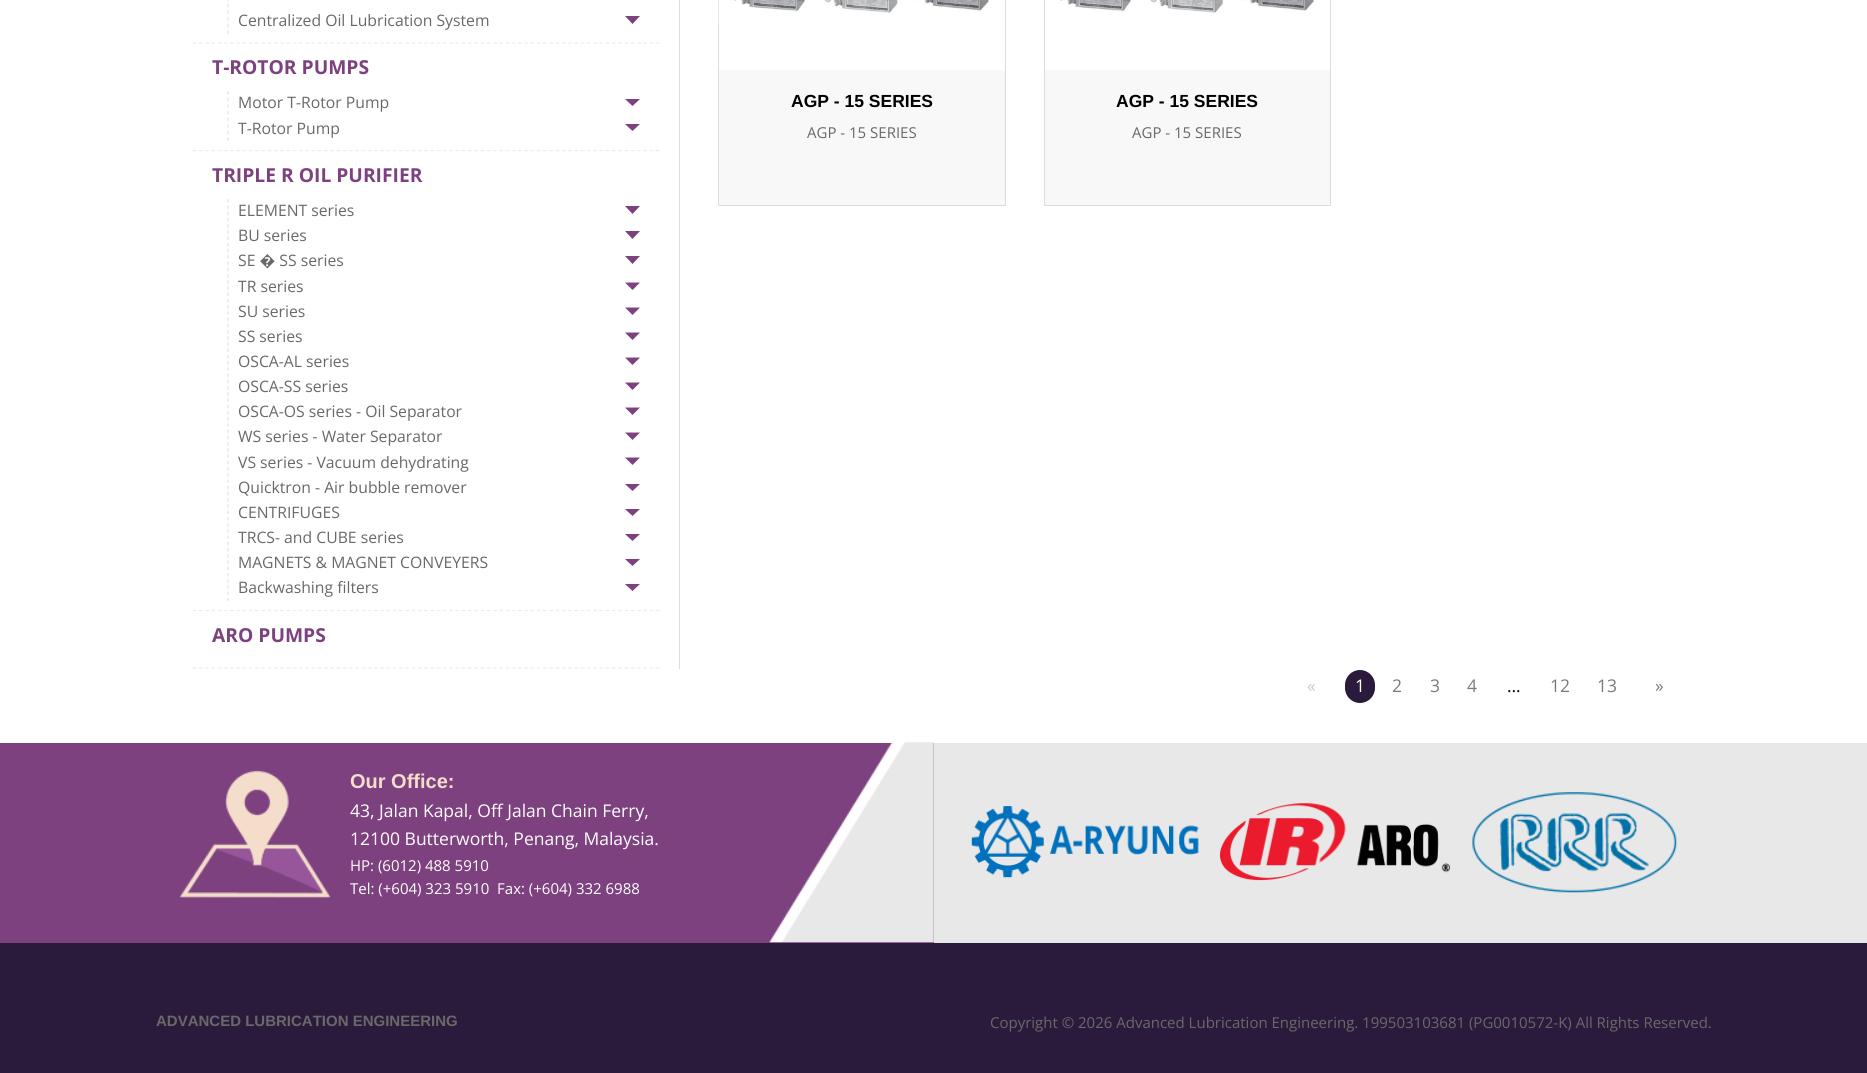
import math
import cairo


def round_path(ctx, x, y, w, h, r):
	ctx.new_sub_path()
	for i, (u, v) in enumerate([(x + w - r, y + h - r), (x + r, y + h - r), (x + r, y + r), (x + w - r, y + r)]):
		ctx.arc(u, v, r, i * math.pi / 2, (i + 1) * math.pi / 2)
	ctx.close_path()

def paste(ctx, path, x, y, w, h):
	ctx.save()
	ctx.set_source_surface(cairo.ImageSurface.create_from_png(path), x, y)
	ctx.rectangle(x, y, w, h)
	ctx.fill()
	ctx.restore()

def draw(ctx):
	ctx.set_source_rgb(1, 1, 1)
	ctx.paint()
	ctx.set_source_rgb(0.863, 0.863, 0.863)
	ctx.rectangle(679, 0, 1, 669)
	ctx.fill()
	ctx.new_path()
	ctx.move_to(192.5, 43)
	ctx.line_to(660, 43)
	ctx.set_source_rgb(0.929, 0.929, 0.929)
	ctx.set_line_width(1.2)
	ctx.set_dash([3.75, 2.51])
	ctx.stroke()
	ctx.new_path()
	ctx.move_to(228, -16)
	ctx.line_to(228, 34)
	ctx.set_source_rgb(0.894, 0.894, 0.894)
	ctx.set_dash([3.75, 2.86])
	ctx.stroke()
	ctx.select_font_face('Open Sans')
	ctx.set_font_size(15.75)
	ctx.set_source_rgb(0.412, 0.412, 0.412)
	ctx.move_to(238, 26)
	ctx.show_text('Centralized Oil Lubrication System')
	ctx.set_source_rgb(0.49, 0.255, 0.498)
	ctx.new_path()
	ctx.move_to(625, 16)
	ctx.line_to(640, 16)
	ctx.line_to(632.5, 24)
	ctx.close_path()
	ctx.fill()
	ctx.new_path()
	ctx.move_to(192.5, 150.5)
	ctx.line_to(660, 150.5)
	ctx.set_source_rgb(0.929, 0.929, 0.929)
	ctx.set_dash([3.75, 2.51])
	ctx.stroke()
	ctx.select_font_face('Open Sans', cairo.FONT_SLANT_NORMAL, cairo.FONT_WEIGHT_BOLD)
	ctx.set_font_size(19.25)
	ctx.set_source_rgb(0.49, 0.255, 0.498)
	ctx.move_to(212, 74)
	ctx.show_text('T-ROTOR PUMPS')
	ctx.new_path()
	ctx.move_to(228, 91)
	ctx.line_to(228, 141)
	ctx.set_source_rgb(0.894, 0.894, 0.894)
	ctx.set_dash([3.75, 2.86])
	ctx.stroke()
	ctx.select_font_face('Open Sans')
	ctx.set_font_size(15.75)
	ctx.set_source_rgb(0.412, 0.412, 0.412)
	ctx.move_to(238, 108)
	ctx.show_text('Motor T-Rotor Pump')
	ctx.set_source_rgb(0.49, 0.255, 0.498)
	ctx.new_path()
	ctx.move_to(625, 99)
	ctx.line_to(640, 99)
	ctx.line_to(632.5, 106)
	ctx.close_path()
	ctx.fill()
	ctx.set_source_rgb(0.412, 0.412, 0.412)
	ctx.move_to(238, 134)
	ctx.show_text('T-Rotor Pump')
	ctx.set_source_rgb(0.49, 0.255, 0.498)
	ctx.new_path()
	ctx.move_to(625, 124)
	ctx.line_to(640, 124)
	ctx.line_to(632.5, 131)
	ctx.close_path()
	ctx.fill()
	ctx.new_path()
	ctx.move_to(192.5, 610.5)
	ctx.line_to(660, 610.5)
	ctx.set_source_rgb(0.929, 0.929, 0.929)
	ctx.set_dash([3.75, 2.51])
	ctx.stroke()
	ctx.select_font_face('Open Sans', cairo.FONT_SLANT_NORMAL, cairo.FONT_WEIGHT_BOLD)
	ctx.set_font_size(19.25)
	ctx.set_source_rgb(0.49, 0.255, 0.498)
	ctx.move_to(212, 182)
	ctx.show_text('TRIPLE R OIL PURIFIER')
	ctx.new_path()
	ctx.move_to(228, 199)
	ctx.line_to(228, 601)
	ctx.set_source_rgb(0.894, 0.894, 0.894)
	ctx.set_dash([3.75, 2.48])
	ctx.stroke()
	ctx.select_font_face('Open Sans')
	ctx.set_font_size(15.75)
	ctx.set_source_rgb(0.412, 0.412, 0.412)
	ctx.move_to(238, 216)
	ctx.show_text('ELEMENT series')
	ctx.set_source_rgb(0.49, 0.255, 0.498)
	ctx.new_path()
	ctx.move_to(625, 206)
	ctx.line_to(640, 206)
	ctx.line_to(632.5, 214)
	ctx.close_path()
	ctx.fill()
	ctx.set_source_rgb(0.412, 0.412, 0.412)
	ctx.move_to(238, 241)
	ctx.show_text('BU series')
	ctx.set_source_rgb(0.49, 0.255, 0.498)
	ctx.new_path()
	ctx.move_to(625, 231)
	ctx.line_to(640, 231)
	ctx.line_to(632.5, 239)
	ctx.close_path()
	ctx.fill()
	ctx.set_source_rgb(0.412, 0.412, 0.412)
	ctx.move_to(238, 266)
	ctx.show_text('SE � SS series')
	ctx.set_source_rgb(0.49, 0.255, 0.498)
	ctx.new_path()
	ctx.move_to(625, 256)
	ctx.line_to(640, 256)
	ctx.line_to(632.5, 264)
	ctx.close_path()
	ctx.fill()
	ctx.set_source_rgb(0.412, 0.412, 0.412)
	ctx.move_to(238, 292)
	ctx.show_text('TR series')
	ctx.set_source_rgb(0.49, 0.255, 0.498)
	ctx.new_path()
	ctx.move_to(625, 282.5)
	ctx.line_to(640, 282.5)
	ctx.line_to(632.5, 290)
	ctx.close_path()
	ctx.fill()
	ctx.set_source_rgb(0.412, 0.412, 0.412)
	ctx.move_to(238, 317)
	ctx.show_text('SU series')
	ctx.set_source_rgb(0.49, 0.255, 0.498)
	ctx.new_path()
	ctx.move_to(625, 307.5)
	ctx.line_to(640, 307.5)
	ctx.line_to(632.5, 315)
	ctx.close_path()
	ctx.fill()
	ctx.set_source_rgb(0.412, 0.412, 0.412)
	ctx.move_to(238, 342)
	ctx.show_text('SS series')
	ctx.set_source_rgb(0.49, 0.255, 0.498)
	ctx.new_path()
	ctx.move_to(625, 332.5)
	ctx.line_to(640, 332.5)
	ctx.line_to(632.5, 340)
	ctx.close_path()
	ctx.fill()
	ctx.set_source_rgb(0.412, 0.412, 0.412)
	ctx.move_to(238, 367)
	ctx.show_text('OSCA-AL series')
	ctx.set_source_rgb(0.49, 0.255, 0.498)
	ctx.new_path()
	ctx.move_to(625, 357.5)
	ctx.line_to(640, 357.5)
	ctx.line_to(632.5, 365)
	ctx.close_path()
	ctx.fill()
	ctx.set_source_rgb(0.412, 0.412, 0.412)
	ctx.move_to(238, 392)
	ctx.show_text('OSCA-SS series')
	ctx.set_source_rgb(0.49, 0.255, 0.498)
	ctx.new_path()
	ctx.move_to(625, 382.5)
	ctx.line_to(640, 382.5)
	ctx.line_to(632.5, 390)
	ctx.close_path()
	ctx.fill()
	ctx.set_source_rgb(0.412, 0.412, 0.412)
	ctx.move_to(238, 417)
	ctx.show_text('OSCA-OS series - Oil Separator')
	ctx.set_source_rgb(0.49, 0.255, 0.498)
	ctx.new_path()
	ctx.move_to(625, 407.5)
	ctx.line_to(640, 407.5)
	ctx.line_to(632.5, 415)
	ctx.close_path()
	ctx.fill()
	ctx.set_source_rgb(0.412, 0.412, 0.412)
	ctx.move_to(238, 442)
	ctx.show_text('WS series - Water Separator')
	ctx.set_source_rgb(0.49, 0.255, 0.498)
	ctx.new_path()
	ctx.move_to(625, 432.5)
	ctx.line_to(640, 432.5)
	ctx.line_to(632.5, 440)
	ctx.close_path()
	ctx.fill()
	ctx.set_source_rgb(0.412, 0.412, 0.412)
	ctx.move_to(238, 468)
	ctx.show_text('VS series - Vacuum dehydrating')
	ctx.set_source_rgb(0.49, 0.255, 0.498)
	ctx.new_path()
	ctx.move_to(625, 457.5)
	ctx.line_to(640, 457.5)
	ctx.line_to(632.5, 465)
	ctx.close_path()
	ctx.fill()
	ctx.set_source_rgb(0.412, 0.412, 0.412)
	ctx.move_to(238, 493)
	ctx.show_text('Quicktron - Air bubble remover')
	ctx.set_source_rgb(0.49, 0.255, 0.498)
	ctx.new_path()
	ctx.move_to(625, 484)
	ctx.line_to(640, 484)
	ctx.line_to(632.5, 491)
	ctx.close_path()
	ctx.fill()
	ctx.set_source_rgb(0.412, 0.412, 0.412)
	ctx.move_to(238, 518)
	ctx.show_text('CENTRIFUGES')
	ctx.set_source_rgb(0.49, 0.255, 0.498)
	ctx.new_path()
	ctx.move_to(625, 509)
	ctx.line_to(640, 509)
	ctx.line_to(632.5, 516)
	ctx.close_path()
	ctx.fill()
	ctx.set_source_rgb(0.412, 0.412, 0.412)
	ctx.move_to(238, 543)
	ctx.show_text('TRCS- and CUBE series')
	ctx.set_source_rgb(0.49, 0.255, 0.498)
	ctx.new_path()
	ctx.move_to(625, 534)
	ctx.line_to(640, 534)
	ctx.line_to(632.5, 541)
	ctx.close_path()
	ctx.fill()
	ctx.set_source_rgb(0.412, 0.412, 0.412)
	ctx.move_to(238, 568)
	ctx.show_text('MAGNETS & MAGNET CONVEYERS')
	ctx.set_source_rgb(0.49, 0.255, 0.498)
	ctx.new_path()
	ctx.move_to(625, 559)
	ctx.line_to(640, 559)
	ctx.line_to(632.5, 566)
	ctx.close_path()
	ctx.fill()
	ctx.set_source_rgb(0.412, 0.412, 0.412)
	ctx.move_to(238, 593)
	ctx.show_text('Backwashing filters')
	ctx.set_source_rgb(0.49, 0.255, 0.498)
	ctx.new_path()
	ctx.move_to(625, 584)
	ctx.line_to(640, 584)
	ctx.line_to(632.5, 591)
	ctx.close_path()
	ctx.fill()
	ctx.new_path()
	ctx.move_to(192.5, 668)
	ctx.line_to(660, 668)
	ctx.set_source_rgb(0.929, 0.929, 0.929)
	ctx.set_dash([3.75, 2.51])
	ctx.stroke()
	ctx.select_font_face('Open Sans', cairo.FONT_SLANT_NORMAL, cairo.FONT_WEIGHT_BOLD)
	ctx.set_font_size(19.25)
	ctx.set_source_rgb(0.49, 0.255, 0.498)
	ctx.move_to(212, 642)
	ctx.show_text('ARO PUMPS')
	ctx.set_source_rgb(0.969, 0.969, 0.969)
	ctx.rectangle(719, 70, 286, 135)
	ctx.fill()
	ctx.rectangle(718.5, -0.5, 287, 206)
	ctx.set_source_rgb(0.863, 0.863, 0.863)
	ctx.set_line_width(1)
	ctx.set_dash([])
	ctx.stroke()
	paste(ctx, 'media/1.png', 718, 0, 272, 24)
	ctx.select_font_face('Liberation Sans', cairo.FONT_SLANT_NORMAL, cairo.FONT_WEIGHT_BOLD)
	ctx.set_font_size(17.5)
	ctx.set_source_rgb(0, 0, 0)
	ctx.move_to(791, 107)
	ctx.show_text('AGP - 15 SERIES')
	ctx.select_font_face('Open Sans')
	ctx.set_font_size(15)
	ctx.set_source_rgb(0.412, 0.412, 0.412)
	ctx.move_to(807, 138)
	ctx.show_text('AGP - 15 SERIES')
	ctx.set_source_rgb(0.969, 0.969, 0.969)
	ctx.rectangle(1045, 70, 285, 135)
	ctx.fill()
	ctx.rectangle(1044.5, -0.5, 286, 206)
	ctx.set_source_rgb(0.863, 0.863, 0.863)
	ctx.stroke()
	paste(ctx, 'media/2.png', 1060, 0, 255, 15)
	ctx.select_font_face('Liberation Sans', cairo.FONT_SLANT_NORMAL, cairo.FONT_WEIGHT_BOLD)
	ctx.set_font_size(17.5)
	ctx.set_source_rgb(0, 0, 0)
	ctx.move_to(1116, 107)
	ctx.show_text('AGP - 15 SERIES')
	ctx.select_font_face('Open Sans')
	ctx.set_font_size(15)
	ctx.set_source_rgb(0.412, 0.412, 0.412)
	ctx.move_to(1132, 138)
	ctx.show_text('AGP - 15 SERIES')
	ctx.set_font_size(17.5)
	ctx.set_source_rgb(0.792, 0.792, 0.792)
	ctx.move_to(1307, 692)
	ctx.show_text('«')
	ctx.set_source_rgb(0.165, 0.106, 0.235)
	round_path(ctx, 1345, 670, 30, 33, 15)
	ctx.fill()
	ctx.set_source_rgb(1, 1, 1)
	ctx.move_to(1355, 692)
	ctx.show_text('1')
	ctx.set_source_rgb(0.486, 0.482, 0.482)
	for x, y, s in [
		(1392, 692, '2'),
		(1430, 692, '3'),
		(1467, 692, '4'),
		(1550, 692, '12'),
		(1597, 692, '13'),
		(1655, 692, '»'),
	]:
		ctx.move_to(x, y)
		ctx.show_text(s)
	ctx.set_source_rgb(0.039, 0.039, 0.039)
	ctx.move_to(1507, 692)
	ctx.show_text('…')
	ctx.set_source_rgb(0.49, 0.255, 0.498)
	ctx.rectangle(0, 743, 934, 200)
	ctx.fill()
	ctx.set_source_rgb(0.91, 0.91, 0.91)
	ctx.rectangle(934, 743, 933, 200)
	ctx.fill()
	paste(ctx, 'media/3.png', 971, 806, 228, 72)
	paste(ctx, 'media/4.png', 1220, 803, 230, 78)
	paste(ctx, 'media/5.png', 1472, 792, 205, 101)
	paste(ctx, 'media/6.png', 768, 742, 166, 201)
	paste(ctx, 'media/7.png', 179, 770, 152, 128)
	ctx.select_font_face('Liberation Sans', cairo.FONT_SLANT_NORMAL, cairo.FONT_WEIGHT_BOLD)
	ctx.set_font_size(20)
	ctx.set_source_rgb(0.957, 0.871, 0.796)
	ctx.move_to(350, 788)
	ctx.show_text('Our Office:')
	ctx.select_font_face('Open Sans')
	ctx.set_font_size(17.5)
	ctx.set_source_rgb(1, 1, 1)
	ctx.move_to(350, 817)
	ctx.show_text('43, Jalan Kapal, Off Jalan Chain Ferry,')
	ctx.move_to(350, 845)
	ctx.show_text('12100 Butterworth, Penang, Malaysia.')
	ctx.set_font_size(15)
	ctx.move_to(350, 871)
	ctx.show_text('HP: (6012) 488 5910')
	ctx.move_to(350, 894)
	ctx.show_text('Tel: (+604) 323 5910  Fax: (+604) 332 6988')
	ctx.set_source_rgb(0.165, 0.106, 0.235)
	ctx.rectangle(0, 943, 1867, 130)
	ctx.fill()
	ctx.select_font_face('Liberation Sans', cairo.FONT_SLANT_NORMAL, cairo.FONT_WEIGHT_BOLD)
	ctx.set_source_rgb(0.412, 0.412, 0.412)
	ctx.move_to(156, 1026)
	ctx.show_text('ADVANCED LUBRICATION ENGINEERING')
	ctx.select_font_face('Open Sans')
	ctx.move_to(990, 1028)
	ctx.show_text('Copyright © 2026 Advanced Lubrication Engineering. 199503103681 (PG0010572-K) All Rights Reserved.')


surface = cairo.ImageSurface(cairo.FORMAT_RGB24, 1867, 1073)
ctx = cairo.Context(surface)
options = cairo.FontOptions()
options.set_hint_metrics(cairo.HINT_METRICS_OFF)
options.set_hint_style(cairo.HINT_STYLE_NONE)
ctx.set_font_options(options)
ctx.set_miter_limit(4)
draw(ctx)
surface.write_to_png('image.png')
